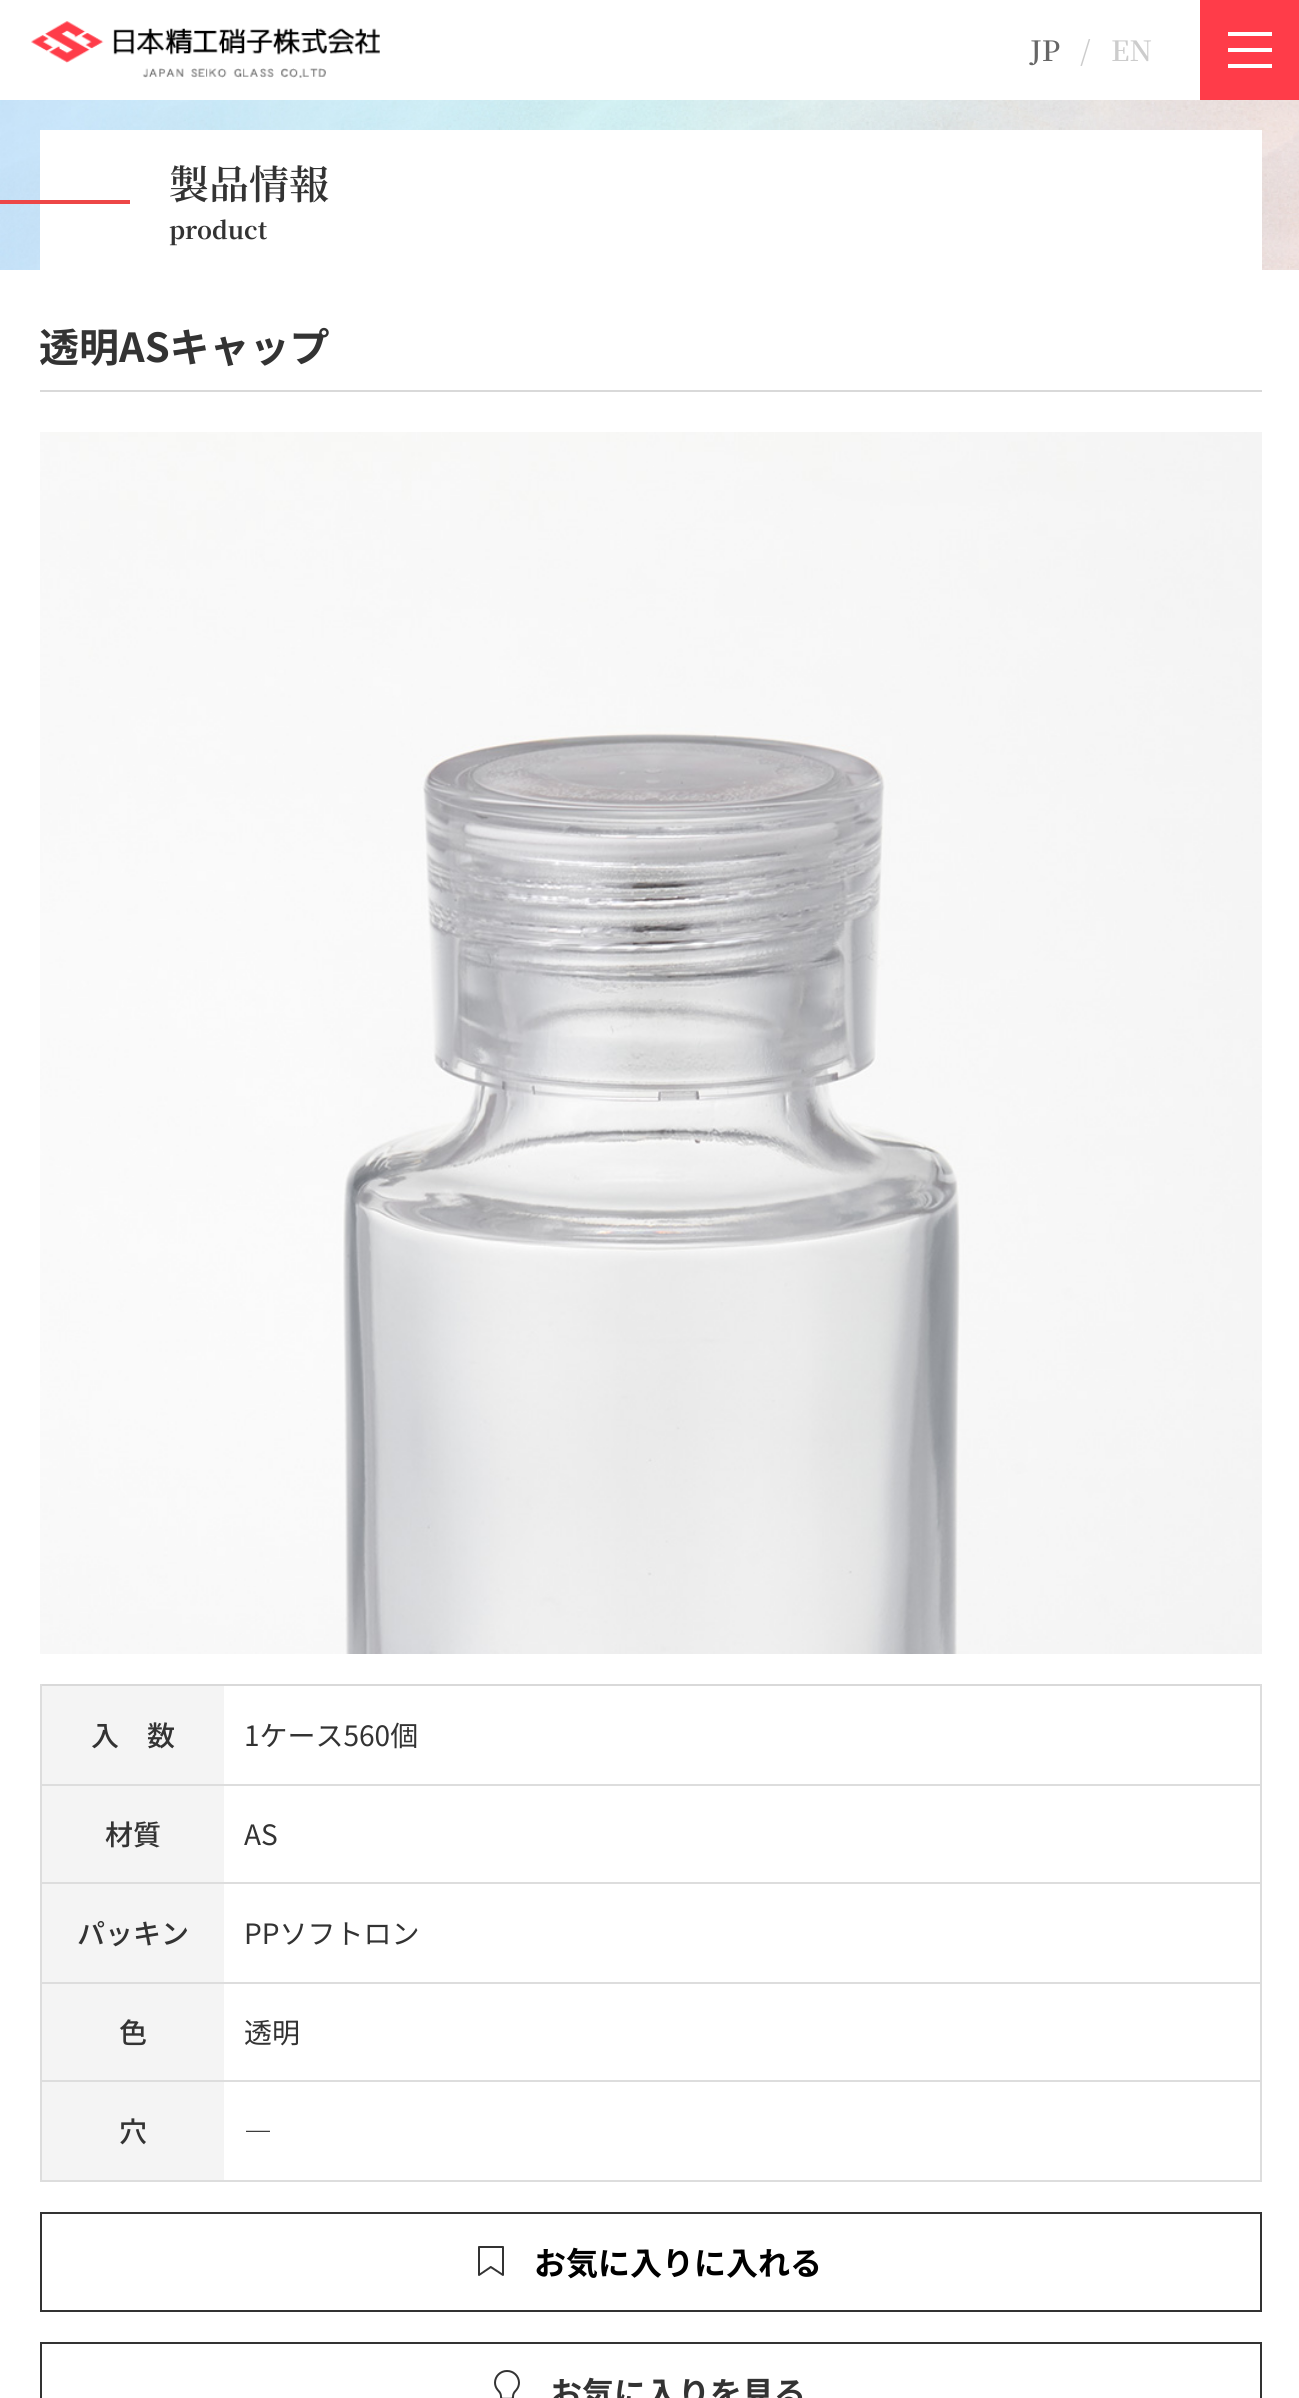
import math
import cairo


def paste(ctx, path, x, y, w, h):
	ctx.save()
	ctx.set_source_surface(cairo.ImageSurface.create_from_png(path), x, y)
	ctx.rectangle(x, y, w, h)
	ctx.fill()
	ctx.restore()

def draw(ctx):
	ctx.set_source_rgb(1, 1, 1)
	ctx.paint()
	paste(ctx, 'media/1.png', 31, 21, 349, 57)
	ctx.set_source_rgb(1, 0.235, 0.286)
	ctx.rectangle(1200, 0, 99, 100)
	ctx.fill()
	ctx.set_source_rgb(1, 1, 1)
	ctx.rectangle(1228, 32, 44, 4)
	ctx.rectangle(1228, 48, 44, 4)
	ctx.rectangle(1228, 64, 44, 4)
	ctx.fill()
	ctx.select_font_face('Noto Serif JP SemiBold')
	ctx.set_font_size(28)
	ctx.set_source_rgb(0.4, 0.4, 0.4)
	ctx.move_to(1030, 61)
	ctx.show_text('JP')
	ctx.set_source_rgb(0.8, 0.8, 0.8)
	ctx.move_to(1080, 61)
	ctx.show_text('/')
	ctx.move_to(1111, 61)
	ctx.show_text('EN')
	paste(ctx, 'media/5.png', 0, 100, 1299, 170)
	ctx.set_source_rgb(1, 1, 1)
	ctx.rectangle(40, 130, 1222, 140)
	ctx.fill()
	ctx.set_source_rgb(0.929, 0.278, 0.278)
	ctx.rectangle(0, 200, 130, 4)
	ctx.fill()
	ctx.set_font_size(40)
	ctx.set_source_rgb(0.2, 0.2, 0.2)
	ctx.move_to(169, 199)
	ctx.show_text('製品情報')
	ctx.select_font_face('Noto Serif JP', cairo.FONT_SLANT_NORMAL, cairo.FONT_WEIGHT_BOLD)
	ctx.set_font_size(24)
	ctx.move_to(169, 239)
	ctx.show_text('product')
	ctx.set_source_rgb(0.851, 0.851, 0.851)
	ctx.rectangle(40, 390, 1222, 2)
	ctx.fill()
	ctx.select_font_face('Noto Sans JP', cairo.FONT_SLANT_NORMAL, cairo.FONT_WEIGHT_BOLD)
	ctx.set_font_size(40)
	ctx.set_source_rgb(0.2, 0.2, 0.2)
	ctx.move_to(39, 362)
	ctx.show_text('透明ASキャップ')
	paste(ctx, 'media/2.png', 40, 432, 1222, 1222)
	ctx.set_source_rgb(0.851, 0.851, 0.851)
	ctx.rectangle(40, 1684, 1222, 2)
	ctx.fill()
	ctx.set_source_rgb(0.867, 0.867, 0.867)
	ctx.rectangle(1260, 1684, 2, 498)
	ctx.rectangle(40, 1684, 2, 498)
	ctx.fill()
	ctx.set_source_rgb(0.957, 0.957, 0.957)
	ctx.rectangle(42, 1686, 182, 98)
	ctx.fill()
	ctx.select_font_face('Noto Sans JP Medium')
	ctx.set_font_size(28)
	ctx.set_source_rgb(0.2, 0.2, 0.2)
	ctx.move_to(91, 1746)
	ctx.show_text('入　数')
	ctx.set_source_rgb(0.867, 0.867, 0.867)
	ctx.rectangle(40, 1784, 1222, 2)
	ctx.fill()
	ctx.select_font_face('Noto Sans JP')
	ctx.set_source_rgb(0.2, 0.2, 0.2)
	ctx.move_to(244, 1746)
	ctx.show_text('1ケース560個')
	ctx.set_source_rgb(0.957, 0.957, 0.957)
	ctx.rectangle(42, 1786, 182, 96)
	ctx.fill()
	ctx.select_font_face('Noto Sans JP Medium')
	ctx.set_source_rgb(0.2, 0.2, 0.2)
	ctx.move_to(105, 1845)
	ctx.show_text('材質')
	ctx.set_source_rgb(0.867, 0.867, 0.867)
	ctx.rectangle(40, 1882, 1222, 2)
	ctx.fill()
	ctx.select_font_face('Noto Sans JP')
	ctx.set_source_rgb(0.2, 0.2, 0.2)
	ctx.move_to(244, 1845)
	ctx.show_text('AS')
	ctx.set_source_rgb(0.957, 0.957, 0.957)
	ctx.rectangle(42, 1884, 182, 98)
	ctx.fill()
	ctx.select_font_face('Noto Sans JP Medium')
	ctx.set_source_rgb(0.2, 0.2, 0.2)
	ctx.move_to(77, 1944)
	ctx.show_text('パッキン')
	ctx.set_source_rgb(0.867, 0.867, 0.867)
	ctx.rectangle(40, 1982, 1222, 2)
	ctx.fill()
	ctx.select_font_face('Noto Sans JP')
	ctx.set_source_rgb(0.2, 0.2, 0.2)
	ctx.move_to(244, 1944)
	ctx.show_text('PPソフトロン')
	ctx.set_source_rgb(0.957, 0.957, 0.957)
	ctx.rectangle(42, 1984, 182, 96)
	ctx.fill()
	ctx.select_font_face('Noto Sans JP Medium')
	ctx.set_source_rgb(0.2, 0.2, 0.2)
	ctx.move_to(119, 2043)
	ctx.show_text('色')
	ctx.set_source_rgb(0.867, 0.867, 0.867)
	ctx.rectangle(40, 2080, 1222, 2)
	ctx.fill()
	ctx.select_font_face('Noto Sans JP')
	ctx.set_source_rgb(0.2, 0.2, 0.2)
	ctx.move_to(244, 2043)
	ctx.show_text('透明')
	ctx.set_source_rgb(0.957, 0.957, 0.957)
	ctx.rectangle(42, 2082, 182, 98)
	ctx.fill()
	ctx.select_font_face('Noto Sans JP Medium')
	ctx.set_source_rgb(0.2, 0.2, 0.2)
	ctx.move_to(119, 2142)
	ctx.show_text('穴')
	ctx.set_source_rgb(0.867, 0.867, 0.867)
	ctx.rectangle(40, 2180, 1222, 2)
	ctx.fill()
	ctx.select_font_face('Noto Sans JP')
	ctx.set_source_rgb(0.2, 0.2, 0.2)
	ctx.move_to(244, 2142)
	ctx.show_text('―')
	ctx.rectangle(41, 2213, 1220, 98)
	ctx.stroke()
	paste(ctx, 'media/3.png', 478, 2246, 26, 30)
	ctx.select_font_face('Noto Sans JP', cairo.FONT_SLANT_NORMAL, cairo.FONT_WEIGHT_BOLD)
	ctx.set_font_size(32)
	ctx.set_source_rgb(0, 0, 0)
	ctx.move_to(534, 2275)
	ctx.show_text('お気に入りに入れる')
	ctx.rectangle(41, 2343, 1220, 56)
	ctx.set_source_rgb(0.2, 0.2, 0.2)
	ctx.stroke()
	paste(ctx, 'media/4.png', 494, 2370, 26, 28)
	ctx.move_to(550, 2405)
	ctx.show_text('お気に入りを見る')


surface = cairo.ImageSurface(cairo.FORMAT_RGB24, 1299, 2398)
ctx = cairo.Context(surface)
options = cairo.FontOptions()
options.set_hint_metrics(cairo.HINT_METRICS_OFF)
options.set_hint_style(cairo.HINT_STYLE_NONE)
ctx.set_font_options(options)
ctx.set_miter_limit(4)
draw(ctx)
surface.write_to_png('image.png')
